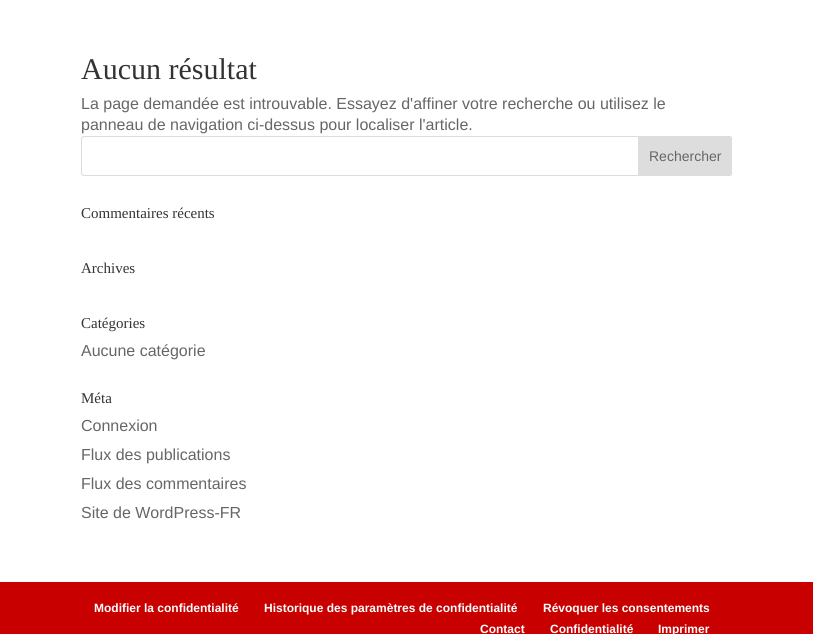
import math
import cairo


def round_path(ctx, x, y, w, h, r):
	ctx.new_sub_path()
	for i, (u, v) in enumerate([(x + w - r, y + h - r), (x + r, y + h - r), (x + r, y + r), (x + w - r, y + r)]):
		ctx.arc(u, v, r, i * math.pi / 2, (i + 1) * math.pi / 2)
	ctx.close_path()

def draw(ctx):
	ctx.set_source_rgb(1, 1, 1)
	ctx.paint()
	ctx.select_font_face('Liberation Serif')
	ctx.set_font_size(30)
	ctx.set_source_rgb(0.2, 0.2, 0.2)
	ctx.move_to(81, 79)
	ctx.show_text('Aucun résultat')
	ctx.select_font_face('Liberation Sans')
	ctx.set_font_size(16)
	ctx.set_source_rgb(0.4, 0.4, 0.4)
	ctx.move_to(81, 109)
	ctx.show_text('La page demandée est introuvable. Essayez d\'affiner votre recherche ou utilisez le')
	ctx.move_to(81, 130)
	ctx.show_text('panneau de navigation ci-dessus pour localiser l\'article.')
	round_path(ctx, 81.5, 136.5, 650, 39, 2.5)
	ctx.set_source_rgb(0.867, 0.867, 0.867)
	ctx.set_line_width(1)
	ctx.stroke()
	ctx.new_path()
	ctx.move_to(638.5, 136.5)
	ctx.line_to(729, 136.5)
	ctx.curve_to(730.5, 136.5, 731.5, 137.5, 731.5, 139)
	ctx.line_to(731.5, 173)
	ctx.curve_to(731.5, 174.5, 730.5, 175.5, 729, 175.5)
	ctx.line_to(638.5, 175.5)
	ctx.close_path()
	ctx.fill_preserve()
	ctx.stroke()
	ctx.set_font_size(14)
	ctx.set_source_rgb(0.4, 0.4, 0.4)
	ctx.move_to(649, 161)
	ctx.show_text('Rechercher')
	ctx.select_font_face('Liberation Serif')
	ctx.set_font_size(15)
	ctx.set_source_rgb(0.2, 0.2, 0.2)
	for x, y, s in [
		(81, 218, 'Commentaires récents'),
		(81, 273, 'Archives'),
		(81, 328, 'Catégories'),
	]:
		ctx.move_to(x, y)
		ctx.show_text(s)
	ctx.select_font_face('Liberation Sans')
	ctx.set_font_size(16)
	ctx.set_source_rgb(0.4, 0.4, 0.4)
	ctx.move_to(81, 356)
	ctx.show_text('Aucune catégorie')
	ctx.select_font_face('Liberation Serif')
	ctx.set_font_size(15)
	ctx.set_source_rgb(0.2, 0.2, 0.2)
	ctx.move_to(81, 403)
	ctx.show_text('Méta')
	ctx.select_font_face('Liberation Sans')
	ctx.set_font_size(16)
	ctx.set_source_rgb(0.4, 0.4, 0.4)
	for x, y, s in [
		(81, 431, 'Connexion'),
		(81, 460, 'Flux des publications'),
		(81, 489, 'Flux des commentaires'),
		(81, 518, 'Site de WordPress-FR'),
	]:
		ctx.move_to(x, y)
		ctx.show_text(s)
	ctx.set_source_rgb(0.784, 0, 0)
	ctx.rectangle(0, 582, 813, 52)
	ctx.fill()
	ctx.select_font_face('Liberation Sans', cairo.FONT_SLANT_NORMAL, cairo.FONT_WEIGHT_BOLD)
	ctx.set_font_size(12)
	ctx.set_source_rgb(1, 1, 1)
	for x, y, s in [
		(94, 612, 'Modifier la confidentialité'),
		(264, 612, 'Historique des paramètres de confidentialité'),
		(543, 612, 'Révoquer les consentements'),
		(480, 633, 'Contact'),
		(550, 633, 'Confidentialité'),
		(658, 633, 'Imprimer'),
	]:
		ctx.move_to(x, y)
		ctx.show_text(s)


surface = cairo.ImageSurface(cairo.FORMAT_RGB24, 813, 634)
ctx = cairo.Context(surface)
options = cairo.FontOptions()
options.set_hint_metrics(cairo.HINT_METRICS_OFF)
options.set_hint_style(cairo.HINT_STYLE_NONE)
ctx.set_font_options(options)
ctx.set_miter_limit(4)
draw(ctx)
surface.write_to_png('image.png')
